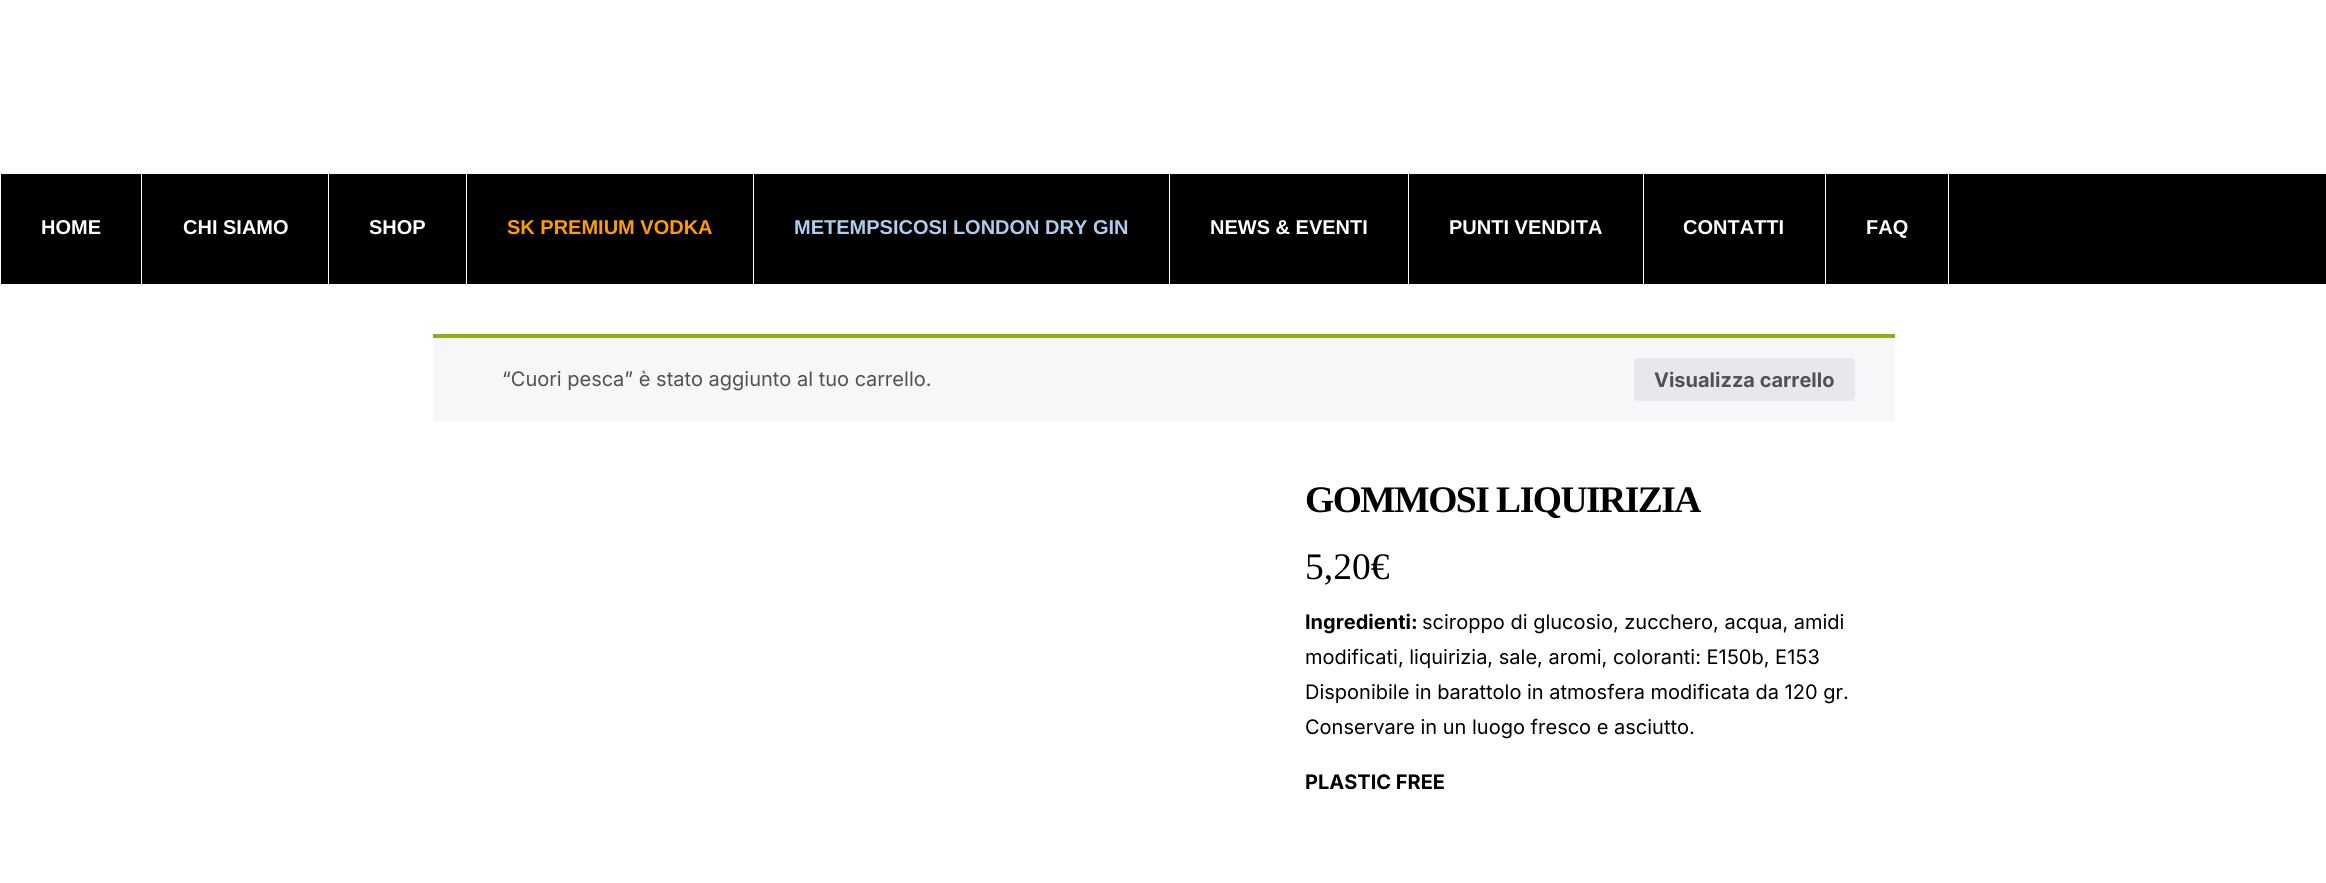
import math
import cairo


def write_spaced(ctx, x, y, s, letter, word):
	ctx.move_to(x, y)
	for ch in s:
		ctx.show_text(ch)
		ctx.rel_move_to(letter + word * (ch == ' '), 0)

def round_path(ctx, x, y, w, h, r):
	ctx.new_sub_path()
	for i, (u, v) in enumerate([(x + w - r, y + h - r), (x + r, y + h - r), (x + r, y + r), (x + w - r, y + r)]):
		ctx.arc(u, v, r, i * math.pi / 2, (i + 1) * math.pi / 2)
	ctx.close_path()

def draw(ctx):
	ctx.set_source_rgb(1, 1, 1)
	ctx.paint()
	ctx.set_source_rgb(0, 0, 0)
	ctx.rectangle(1, 174, 2325, 110)
	ctx.fill()
	ctx.set_source_rgb(1, 1, 1)
	ctx.rectangle(141, 174, 1, 110)
	ctx.fill()
	ctx.select_font_face('Liberation Sans', cairo.FONT_SLANT_NORMAL, cairo.FONT_WEIGHT_BOLD)
	ctx.set_font_size(20)
	ctx.move_to(41, 234)
	ctx.show_text('HOME')
	ctx.rectangle(328, 174, 1, 110)
	ctx.fill()
	ctx.move_to(183, 234)
	ctx.show_text('CHI SIAMO')
	ctx.rectangle(466, 174, 1, 110)
	ctx.fill()
	ctx.move_to(369, 234)
	ctx.show_text('SHOP')
	ctx.rectangle(753, 174, 1, 110)
	ctx.fill()
	ctx.set_source_rgb(0.996, 0.616, 0)
	ctx.move_to(507, 234)
	ctx.show_text('SK PREMIUM VODKA')
	ctx.set_source_rgb(1, 1, 1)
	ctx.rectangle(1169, 174, 1, 110)
	ctx.fill()
	ctx.set_source_rgb(0.682, 0.804, 0.933)
	ctx.move_to(794, 234)
	ctx.show_text('METEMPSICOSI LONDON DRY GIN')
	ctx.set_source_rgb(1, 1, 1)
	ctx.rectangle(1408, 174, 1, 110)
	ctx.fill()
	ctx.move_to(1210, 234)
	ctx.show_text('NEWS & EVENTI')
	ctx.rectangle(1643, 174, 1, 110)
	ctx.fill()
	ctx.move_to(1449, 234)
	ctx.show_text('PUNTI VENDITA')
	ctx.rectangle(1825, 174, 1, 110)
	ctx.fill()
	ctx.move_to(1683, 234)
	ctx.show_text('CONTATTI')
	ctx.rectangle(1948, 174, 1, 110)
	ctx.fill()
	ctx.move_to(1866, 234)
	ctx.show_text('FAQ')
	ctx.set_source_rgb(0.965, 0.961, 0.973)
	ctx.rectangle(433, 338, 1462, 83)
	ctx.fill()
	ctx.set_source_rgb(0.561, 0.682, 0.106)
	ctx.rectangle(433, 334, 1462, 4)
	ctx.fill()
	ctx.select_font_face('Inter')
	ctx.set_source_rgb(0.318, 0.318, 0.318)
	ctx.move_to(502, 386)
	ctx.show_text('“Cuori pesca” è stato aggiunto al tuo carrello.')
	ctx.set_source_rgb(0.914, 0.902, 0.929)
	round_path(ctx, 1634, 358, 221, 43, 4)
	ctx.fill()
	ctx.select_font_face('Inter', cairo.FONT_SLANT_NORMAL, cairo.FONT_WEIGHT_BOLD)
	ctx.set_source_rgb(0.318, 0.318, 0.318)
	ctx.move_to(1654, 387)
	ctx.show_text('Visualizza carrello')
	ctx.select_font_face('Liberation Serif', cairo.FONT_SLANT_NORMAL, cairo.FONT_WEIGHT_BOLD)
	ctx.set_font_size(37.5)
	ctx.set_source_rgb(0, 0, 0)
	write_spaced(ctx, 1305, 512, 'GOMMOSI LIQUIRIZIA', -1.5, 0)
	ctx.select_font_face('Liberation Serif')
	ctx.move_to(1305, 579)
	ctx.show_text('5,20€')
	ctx.select_font_face('Inter', cairo.FONT_SLANT_NORMAL, cairo.FONT_WEIGHT_BOLD)
	ctx.set_font_size(20)
	ctx.move_to(1305, 629)
	ctx.show_text('Ingredienti:')
	ctx.select_font_face('Inter')
	for x, y, s in [
		(1422, 629, 'sciroppo di glucosio, zucchero, acqua, amidi'),
		(1305, 664, 'modificati, liquirizia, sale, aromi, coloranti: E150b, E153'),
		(1305, 699, 'Disponibile in barattolo in atmosfera modificata da 120 gr.'),
		(1305, 734, 'Conservare in un luogo fresco e asciutto.'),
	]:
		ctx.move_to(x, y)
		ctx.show_text(s)
	ctx.select_font_face('Inter', cairo.FONT_SLANT_NORMAL, cairo.FONT_WEIGHT_BOLD)
	ctx.move_to(1305, 789)
	ctx.show_text('PLASTIC FREE')


surface = cairo.ImageSurface(cairo.FORMAT_RGB24, 2326, 883)
ctx = cairo.Context(surface)
options = cairo.FontOptions()
options.set_hint_metrics(cairo.HINT_METRICS_OFF)
options.set_hint_style(cairo.HINT_STYLE_NONE)
ctx.set_font_options(options)
ctx.set_miter_limit(4)
draw(ctx)
surface.write_to_png('image.png')
